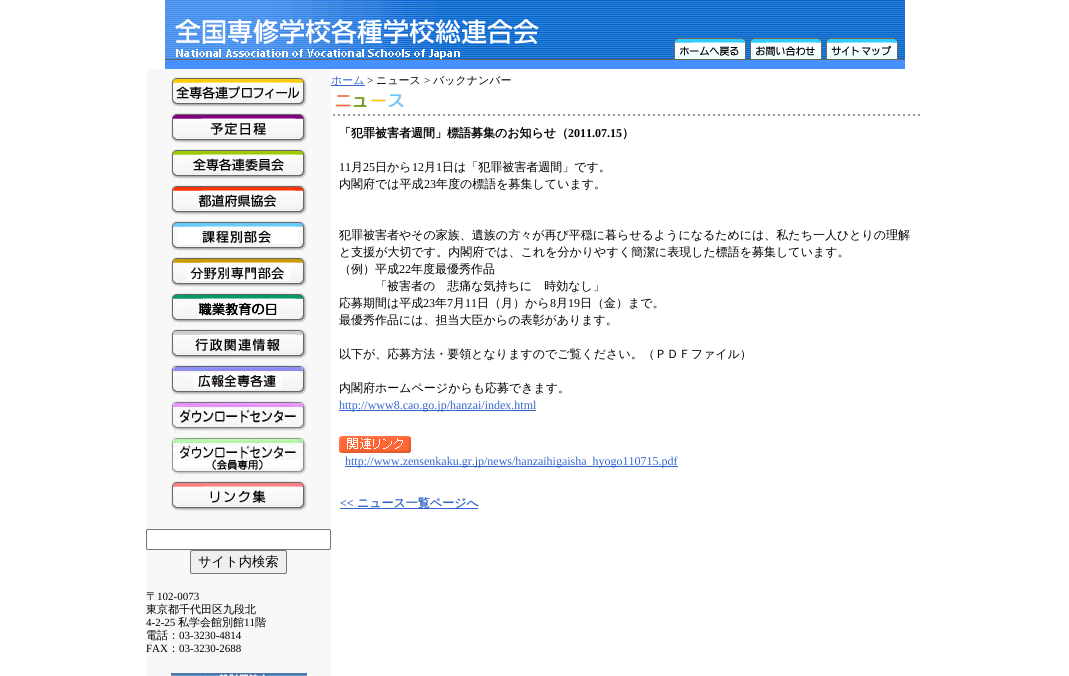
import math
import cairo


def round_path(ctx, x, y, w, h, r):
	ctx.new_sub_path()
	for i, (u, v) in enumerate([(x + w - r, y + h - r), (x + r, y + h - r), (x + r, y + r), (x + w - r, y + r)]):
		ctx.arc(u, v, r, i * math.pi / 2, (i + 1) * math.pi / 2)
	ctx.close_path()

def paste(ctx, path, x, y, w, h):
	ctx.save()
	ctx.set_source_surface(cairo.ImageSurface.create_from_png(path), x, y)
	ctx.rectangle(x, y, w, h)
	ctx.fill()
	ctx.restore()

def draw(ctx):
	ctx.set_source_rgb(1, 1, 1)
	ctx.paint()
	paste(ctx, 'media/1.png', 165, 0, 385, 60)
	paste(ctx, 'media/2.png', 550, 0, 124, 60)
	paste(ctx, 'media/3.png', 674, 0, 231, 38)
	paste(ctx, 'media/4.png', 674, 38, 74, 22)
	paste(ctx, 'media/5.png', 748, 38, 76, 22)
	paste(ctx, 'media/6.png', 824, 38, 81, 22)
	ctx.set_source_rgb(0.278, 0.565, 1)
	ctx.rectangle(165, 60, 740, 9)
	ctx.fill()
	ctx.set_source_rgb(0.2, 0.4, 0.8)
	ctx.rectangle(331, 85, 34, 1)
	ctx.fill()
	ctx.select_font_face('WenQuanYi Zen Hei Medium')
	ctx.set_font_size(11)
	ctx.move_to(331, 84)
	ctx.show_text('ホーム')
	ctx.select_font_face('Liberation Serif')
	ctx.set_source_rgb(0, 0, 0)
	ctx.move_to(367, 84)
	ctx.show_text('>')
	ctx.select_font_face('WenQuanYi Zen Hei Medium')
	ctx.move_to(376, 84)
	ctx.show_text('ニュース')
	ctx.select_font_face('Liberation Serif')
	ctx.move_to(424, 84)
	ctx.show_text('>')
	ctx.select_font_face('WenQuanYi Zen Hei Medium')
	ctx.move_to(433, 84)
	ctx.show_text('バックナンバー')
	paste(ctx, 'media/7.png', 333, 94, 587, 22)
	ctx.select_font_face('WenQuanYi Zen Hei', cairo.FONT_SLANT_NORMAL, cairo.FONT_WEIGHT_BOLD)
	ctx.set_font_size(12)
	ctx.move_to(339, 137)
	ctx.show_text('「犯罪被害者週間」標語募集のお知らせ（')
	ctx.select_font_face('Liberation Serif', cairo.FONT_SLANT_NORMAL, cairo.FONT_WEIGHT_BOLD)
	ctx.move_to(568, 137)
	ctx.show_text('2011.07.15')
	ctx.select_font_face('WenQuanYi Zen Hei', cairo.FONT_SLANT_NORMAL, cairo.FONT_WEIGHT_BOLD)
	ctx.move_to(622, 137)
	ctx.show_text('）')
	ctx.select_font_face('Liberation Serif')
	ctx.move_to(339, 171)
	ctx.show_text('11')
	ctx.select_font_face('WenQuanYi Zen Hei Medium')
	ctx.move_to(351, 171)
	ctx.show_text('月')
	ctx.select_font_face('Liberation Serif')
	ctx.move_to(363, 171)
	ctx.show_text('25')
	ctx.select_font_face('WenQuanYi Zen Hei Medium')
	ctx.move_to(375, 171)
	ctx.show_text('日から')
	ctx.select_font_face('Liberation Serif')
	ctx.move_to(412, 171)
	ctx.show_text('12')
	ctx.select_font_face('WenQuanYi Zen Hei Medium')
	ctx.move_to(424, 171)
	ctx.show_text('月')
	ctx.select_font_face('Liberation Serif')
	ctx.move_to(436, 171)
	ctx.show_text('1')
	ctx.select_font_face('WenQuanYi Zen Hei Medium')
	ctx.move_to(442, 171)
	ctx.show_text('日は「犯罪被害者週間」です。')
	ctx.move_to(339, 188)
	ctx.show_text('内閣府では平成')
	ctx.select_font_face('Liberation Serif')
	ctx.move_to(424, 188)
	ctx.show_text('23')
	ctx.select_font_face('WenQuanYi Zen Hei Medium')
	for x, y, s in [
		(436, 188, '年度の標語を募集しています。'),
		(339, 239, '犯罪被害者やその家族、遺族の方々が再び平穏に暮らせるようになるためには、私たち一人ひとりの理解'),
		(339, 256, 'と支援が大切です。内閣府では、これを分かりやすく簡潔に表現した標語を募集しています。'),
		(339, 273, '（例）平成'),
	]:
		ctx.move_to(x, y)
		ctx.show_text(s)
	ctx.select_font_face('Liberation Serif')
	ctx.move_to(399, 273)
	ctx.show_text('22')
	ctx.select_font_face('WenQuanYi Zen Hei Medium')
	for x, y, s in [
		(411, 273, '年度最優秀作品'),
		(375, 290, '「被害者の　悲痛な気持ちに　時効なし」'),
		(339, 307, '応募期間は平成'),
	]:
		ctx.move_to(x, y)
		ctx.show_text(s)
	ctx.select_font_face('Liberation Serif')
	ctx.move_to(423, 307)
	ctx.show_text('23')
	ctx.select_font_face('WenQuanYi Zen Hei Medium')
	ctx.move_to(435, 307)
	ctx.show_text('年')
	ctx.select_font_face('Liberation Serif')
	ctx.move_to(447, 307)
	ctx.show_text('7')
	ctx.select_font_face('WenQuanYi Zen Hei Medium')
	ctx.move_to(453, 307)
	ctx.show_text('月')
	ctx.select_font_face('Liberation Serif')
	ctx.move_to(465, 307)
	ctx.show_text('11')
	ctx.select_font_face('WenQuanYi Zen Hei Medium')
	ctx.move_to(477, 307)
	ctx.show_text('日（月）から')
	ctx.select_font_face('Liberation Serif')
	ctx.move_to(550, 307)
	ctx.show_text('8')
	ctx.select_font_face('WenQuanYi Zen Hei Medium')
	ctx.move_to(556, 307)
	ctx.show_text('月')
	ctx.select_font_face('Liberation Serif')
	ctx.move_to(568, 307)
	ctx.show_text('19')
	ctx.select_font_face('WenQuanYi Zen Hei Medium')
	for x, y, s in [
		(580, 307, '日（金）まで。'),
		(339, 324, '最優秀作品には、担当大臣からの表彰があります。'),
		(339, 358, '以下が、応募方法・要領となりますのでご覧ください。（ＰＤＦファイル）'),
		(339, 392, '内閣府ホームページからも応募できます。'),
	]:
		ctx.move_to(x, y)
		ctx.show_text(s)
	ctx.set_source_rgb(0.2, 0.4, 0.8)
	ctx.rectangle(339, 410, 197, 1)
	ctx.fill()
	ctx.select_font_face('Liberation Serif')
	ctx.move_to(339, 409)
	ctx.show_text('http://www8.cao.go.jp/hanzai/index.html')
	paste(ctx, 'media/8.png', 339, 436, 72, 17)
	ctx.rectangle(345, 466, 333, 1)
	ctx.fill()
	ctx.move_to(345, 465)
	ctx.show_text('http://www.zensenkaku.gr.jp/news/hanzaihigaisha_hyogo110715.pdf')
	ctx.select_font_face('Liberation Serif', cairo.FONT_SLANT_NORMAL, cairo.FONT_WEIGHT_BOLD)
	ctx.move_to(340, 507)
	ctx.show_text('<<')
	ctx.rectangle(340, 508, 138, 1)
	ctx.fill()
	ctx.select_font_face('WenQuanYi Zen Hei', cairo.FONT_SLANT_NORMAL, cairo.FONT_WEIGHT_BOLD)
	ctx.move_to(357, 507)
	ctx.show_text('ニュース一覧ページへ')
	ctx.set_source_rgb(0.969, 0.969, 0.969)
	ctx.rectangle(146, 69, 185, 607)
	ctx.fill()
	paste(ctx, 'media/9.png', 171, 77, 136, 30)
	paste(ctx, 'media/10.png', 171, 113, 136, 30)
	paste(ctx, 'media/11.png', 171, 149, 136, 30)
	paste(ctx, 'media/12.png', 171, 185, 136, 30)
	paste(ctx, 'media/13.png', 171, 221, 136, 30)
	paste(ctx, 'media/14.png', 171, 257, 136, 30)
	paste(ctx, 'media/15.png', 171, 293, 136, 30)
	paste(ctx, 'media/16.png', 171, 329, 136, 30)
	paste(ctx, 'media/17.png', 171, 365, 136, 30)
	paste(ctx, 'media/18.png', 171, 401, 136, 30)
	paste(ctx, 'media/19.png', 171, 437, 136, 38)
	paste(ctx, 'media/20.png', 171, 481, 136, 30)
	ctx.set_source_rgb(1, 1, 1)
	round_path(ctx, 146.5, 529.5, 184, 20, 1.5)
	ctx.fill_preserve()
	ctx.set_source_rgb(0.463, 0.463, 0.463)
	ctx.set_line_width(1)
	ctx.stroke()
	ctx.set_source_rgb(0.937, 0.937, 0.937)
	round_path(ctx, 190.5, 550.5, 96, 23, 1.5)
	ctx.fill_preserve()
	ctx.set_source_rgb(0.463, 0.463, 0.463)
	ctx.stroke()
	ctx.select_font_face('WenQuanYi Zen Hei Medium')
	ctx.set_font_size(13.25)
	ctx.set_source_rgb(0, 0, 0)
	ctx.move_to(198, 566)
	ctx.show_text('サイト内検索')
	ctx.set_font_size(11)
	ctx.move_to(146, 600)
	ctx.show_text('〒')
	ctx.select_font_face('Liberation Serif')
	ctx.move_to(157, 600)
	ctx.show_text('102-0073')
	ctx.select_font_face('WenQuanYi Zen Hei Medium')
	ctx.move_to(146, 613)
	ctx.show_text('東京都千代田区九段北')
	ctx.select_font_face('Liberation Serif')
	ctx.move_to(146, 626)
	ctx.show_text('4-2-25')
	ctx.select_font_face('WenQuanYi Zen Hei Medium')
	ctx.move_to(178, 626)
	ctx.show_text('私学会館別館')
	ctx.select_font_face('Liberation Serif')
	ctx.move_to(244, 626)
	ctx.show_text('11')
	ctx.select_font_face('WenQuanYi Zen Hei Medium')
	ctx.move_to(255, 626)
	ctx.show_text('階')
	ctx.move_to(146, 639)
	ctx.show_text('電話：')
	ctx.select_font_face('Liberation Serif')
	ctx.move_to(179, 639)
	ctx.show_text('03-3230-4814')
	ctx.move_to(146, 652)
	ctx.show_text('FAX')
	ctx.select_font_face('WenQuanYi Zen Hei Medium')
	ctx.move_to(168, 652)
	ctx.show_text('：')
	ctx.select_font_face('Liberation Serif')
	ctx.move_to(179, 652)
	ctx.show_text('03-3230-2688')
	paste(ctx, 'media/21.png', 171, 673, 136, 3)


surface = cairo.ImageSurface(cairo.FORMAT_RGB24, 1069, 676)
ctx = cairo.Context(surface)
options = cairo.FontOptions()
options.set_hint_metrics(cairo.HINT_METRICS_OFF)
options.set_hint_style(cairo.HINT_STYLE_NONE)
ctx.set_font_options(options)
ctx.set_miter_limit(4)
draw(ctx)
surface.write_to_png('image.png')
